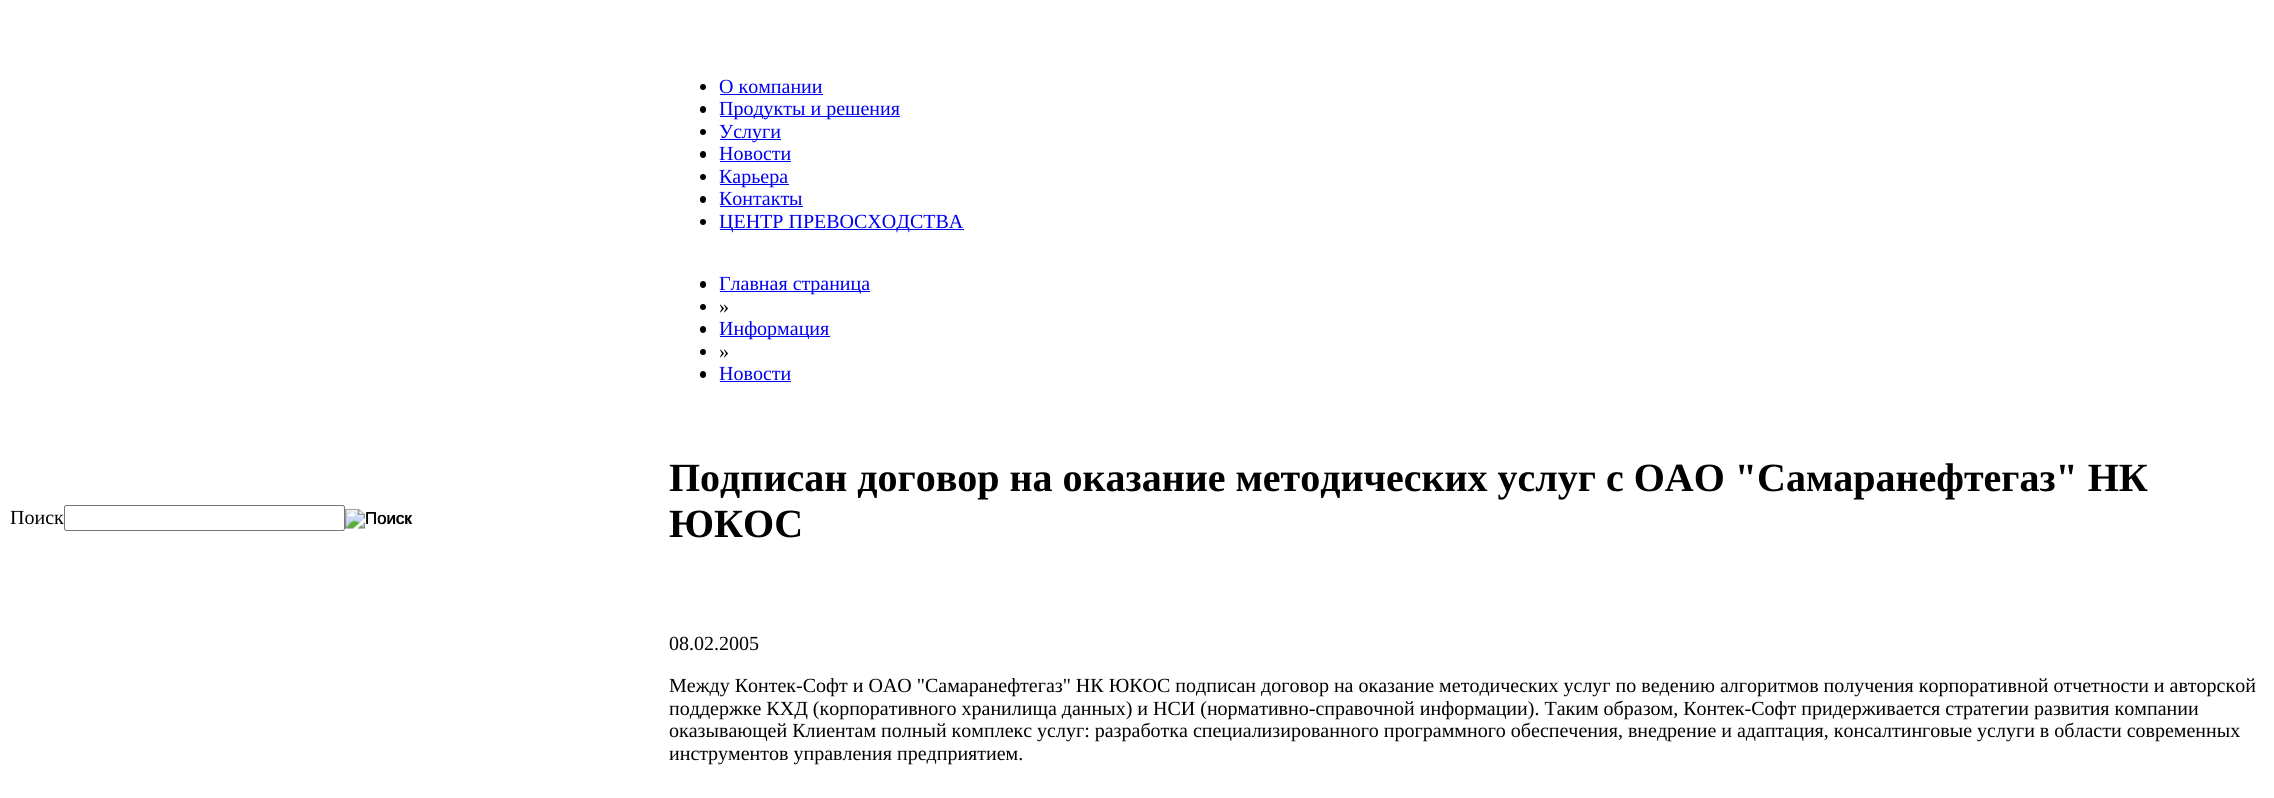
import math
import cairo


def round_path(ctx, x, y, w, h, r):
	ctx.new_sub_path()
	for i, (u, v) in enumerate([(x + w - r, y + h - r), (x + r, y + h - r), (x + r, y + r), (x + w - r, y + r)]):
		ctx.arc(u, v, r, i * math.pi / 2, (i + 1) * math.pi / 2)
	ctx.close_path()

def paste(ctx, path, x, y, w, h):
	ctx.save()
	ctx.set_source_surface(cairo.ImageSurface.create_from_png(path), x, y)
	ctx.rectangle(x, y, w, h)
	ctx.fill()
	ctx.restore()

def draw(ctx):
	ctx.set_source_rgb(1, 1, 1)
	ctx.paint()
	ctx.set_source_rgb(0, 0, 0)
	ctx.arc(703, 87, 3, 0, 2 * math.pi)
	ctx.fill()
	ctx.select_font_face('Liberation Serif')
	ctx.set_font_size(20)
	ctx.set_source_rgb(0, 0, 0.933)
	ctx.move_to(719, 93)
	ctx.show_text('О компании')
	ctx.rectangle(720, 94, 103, 1)
	ctx.fill()
	ctx.set_source_rgb(0, 0, 0)
	round_path(ctx, 700, 106, 6, 7, 3)
	ctx.fill()
	ctx.set_source_rgb(0, 0, 0.933)
	ctx.rectangle(720, 116, 180, 1)
	ctx.fill()
	ctx.move_to(719, 115)
	ctx.show_text('Продукты и решения')
	ctx.set_source_rgb(0, 0, 0)
	ctx.new_path()
	ctx.arc(703, 132, 3, 0, 2 * math.pi)
	ctx.fill()
	ctx.set_source_rgb(0, 0, 0.933)
	ctx.rectangle(720, 139, 61, 1)
	ctx.fill()
	ctx.move_to(719, 138)
	ctx.show_text('Услуги')
	ctx.set_source_rgb(0, 0, 0)
	round_path(ctx, 700, 151, 6, 7, 3)
	ctx.fill()
	ctx.set_source_rgb(0, 0, 0.933)
	ctx.move_to(719, 160)
	ctx.show_text('Новости')
	ctx.rectangle(720, 161, 71, 1)
	ctx.fill()
	ctx.set_source_rgb(0, 0, 0)
	ctx.arc(703, 177, 3, 0, 2 * math.pi)
	ctx.fill()
	ctx.set_source_rgb(0, 0, 0.933)
	ctx.rectangle(720, 184, 69, 1)
	ctx.fill()
	ctx.move_to(719, 183)
	ctx.show_text('Карьера')
	ctx.set_source_rgb(0, 0, 0)
	round_path(ctx, 700, 196, 6, 7, 3)
	ctx.fill()
	ctx.set_source_rgb(0, 0, 0.933)
	ctx.move_to(719, 205)
	ctx.show_text('Контакты')
	ctx.rectangle(720, 206, 83, 1)
	ctx.fill()
	ctx.set_source_rgb(0, 0, 0)
	ctx.arc(703, 222, 3, 0, 2 * math.pi)
	ctx.fill()
	ctx.set_source_rgb(0, 0, 0.933)
	ctx.rectangle(720, 229, 244, 1)
	ctx.fill()
	ctx.move_to(719, 228)
	ctx.show_text('ЦЕНТР ПРЕВОСХОДСТВА')
	ctx.set_source_rgb(0, 0, 0)
	ctx.move_to(10, 524)
	ctx.show_text('Поиск')
	round_path(ctx, 64.5, 505.5, 280, 25, 2)
	ctx.set_source_rgb(0.463, 0.463, 0.463)
	ctx.set_line_width(1)
	ctx.stroke()
	paste(ctx, 'media/1.png', 345, 508, 67, 21)
	ctx.select_font_face('Liberation Sans')
	ctx.set_font_size(17)
	ctx.set_source_rgb(0, 0, 0)
	ctx.move_to(365, 524)
	ctx.show_text('Поиск')
	round_path(ctx, 700, 281, 6, 7, 3)
	ctx.fill()
	ctx.set_source_rgb(0, 0, 0.933)
	ctx.rectangle(720, 291, 150, 1)
	ctx.fill()
	ctx.select_font_face('Liberation Serif')
	ctx.set_font_size(20)
	ctx.move_to(719, 290)
	ctx.show_text('Главная страница')
	ctx.set_source_rgb(0, 0, 0)
	ctx.new_path()
	ctx.arc(703, 307, 3, 0, 2 * math.pi)
	ctx.fill()
	ctx.move_to(719, 313)
	ctx.show_text('»')
	round_path(ctx, 700, 326, 6, 7, 3)
	ctx.fill()
	ctx.set_source_rgb(0, 0, 0.933)
	ctx.rectangle(720, 336, 110, 1)
	ctx.fill()
	ctx.move_to(719, 335)
	ctx.show_text('Информация')
	ctx.set_source_rgb(0, 0, 0)
	ctx.new_path()
	ctx.arc(703, 352, 3, 0, 2 * math.pi)
	ctx.fill()
	ctx.move_to(719, 358)
	ctx.show_text('»')
	round_path(ctx, 700, 371, 6, 7, 3)
	ctx.fill()
	ctx.set_source_rgb(0, 0, 0.933)
	ctx.move_to(719, 380)
	ctx.show_text('Новости')
	ctx.rectangle(720, 381, 71, 1)
	ctx.fill()
	ctx.select_font_face('Liberation Serif', cairo.FONT_SLANT_NORMAL, cairo.FONT_WEIGHT_BOLD)
	ctx.set_font_size(40)
	ctx.set_source_rgb(0, 0, 0)
	ctx.move_to(669, 491)
	ctx.show_text('Подписан договор на оказание методических услуг с ОАО "Самаранефтегаз" НК')
	ctx.move_to(669, 537)
	ctx.show_text('ЮКОС')
	ctx.select_font_face('Liberation Serif')
	ctx.set_font_size(20)
	for x, y, s in [
		(669, 650, '08.02.2005'),
		(669, 692, 'Между Контек-Софт и ОАО "Самаранефтегаз" НК ЮКОС подписан договор на оказание методических услуг по ведению алгоритмов получения корпоративной отчетности и авторской'),
		(669, 715, 'поддержке КХД (корпоративного хранилища данных) и НСИ (нормативно-справочной информации). Таким образом, Контек-Софт придерживается стратегии развития компании'),
		(669, 737, 'оказывающей Клиентам полный комплекс услуг: разработка специализированного программного обеспечения, внедрение и адаптация, консалтинговые услуги в области современных'),
		(669, 760, 'инструментов управления предприятием.'),
	]:
		ctx.move_to(x, y)
		ctx.show_text(s)


surface = cairo.ImageSurface(cairo.FORMAT_RGB24, 2274, 798)
ctx = cairo.Context(surface)
options = cairo.FontOptions()
options.set_hint_metrics(cairo.HINT_METRICS_OFF)
options.set_hint_style(cairo.HINT_STYLE_NONE)
ctx.set_font_options(options)
ctx.set_miter_limit(4)
draw(ctx)
surface.write_to_png('image.png')
